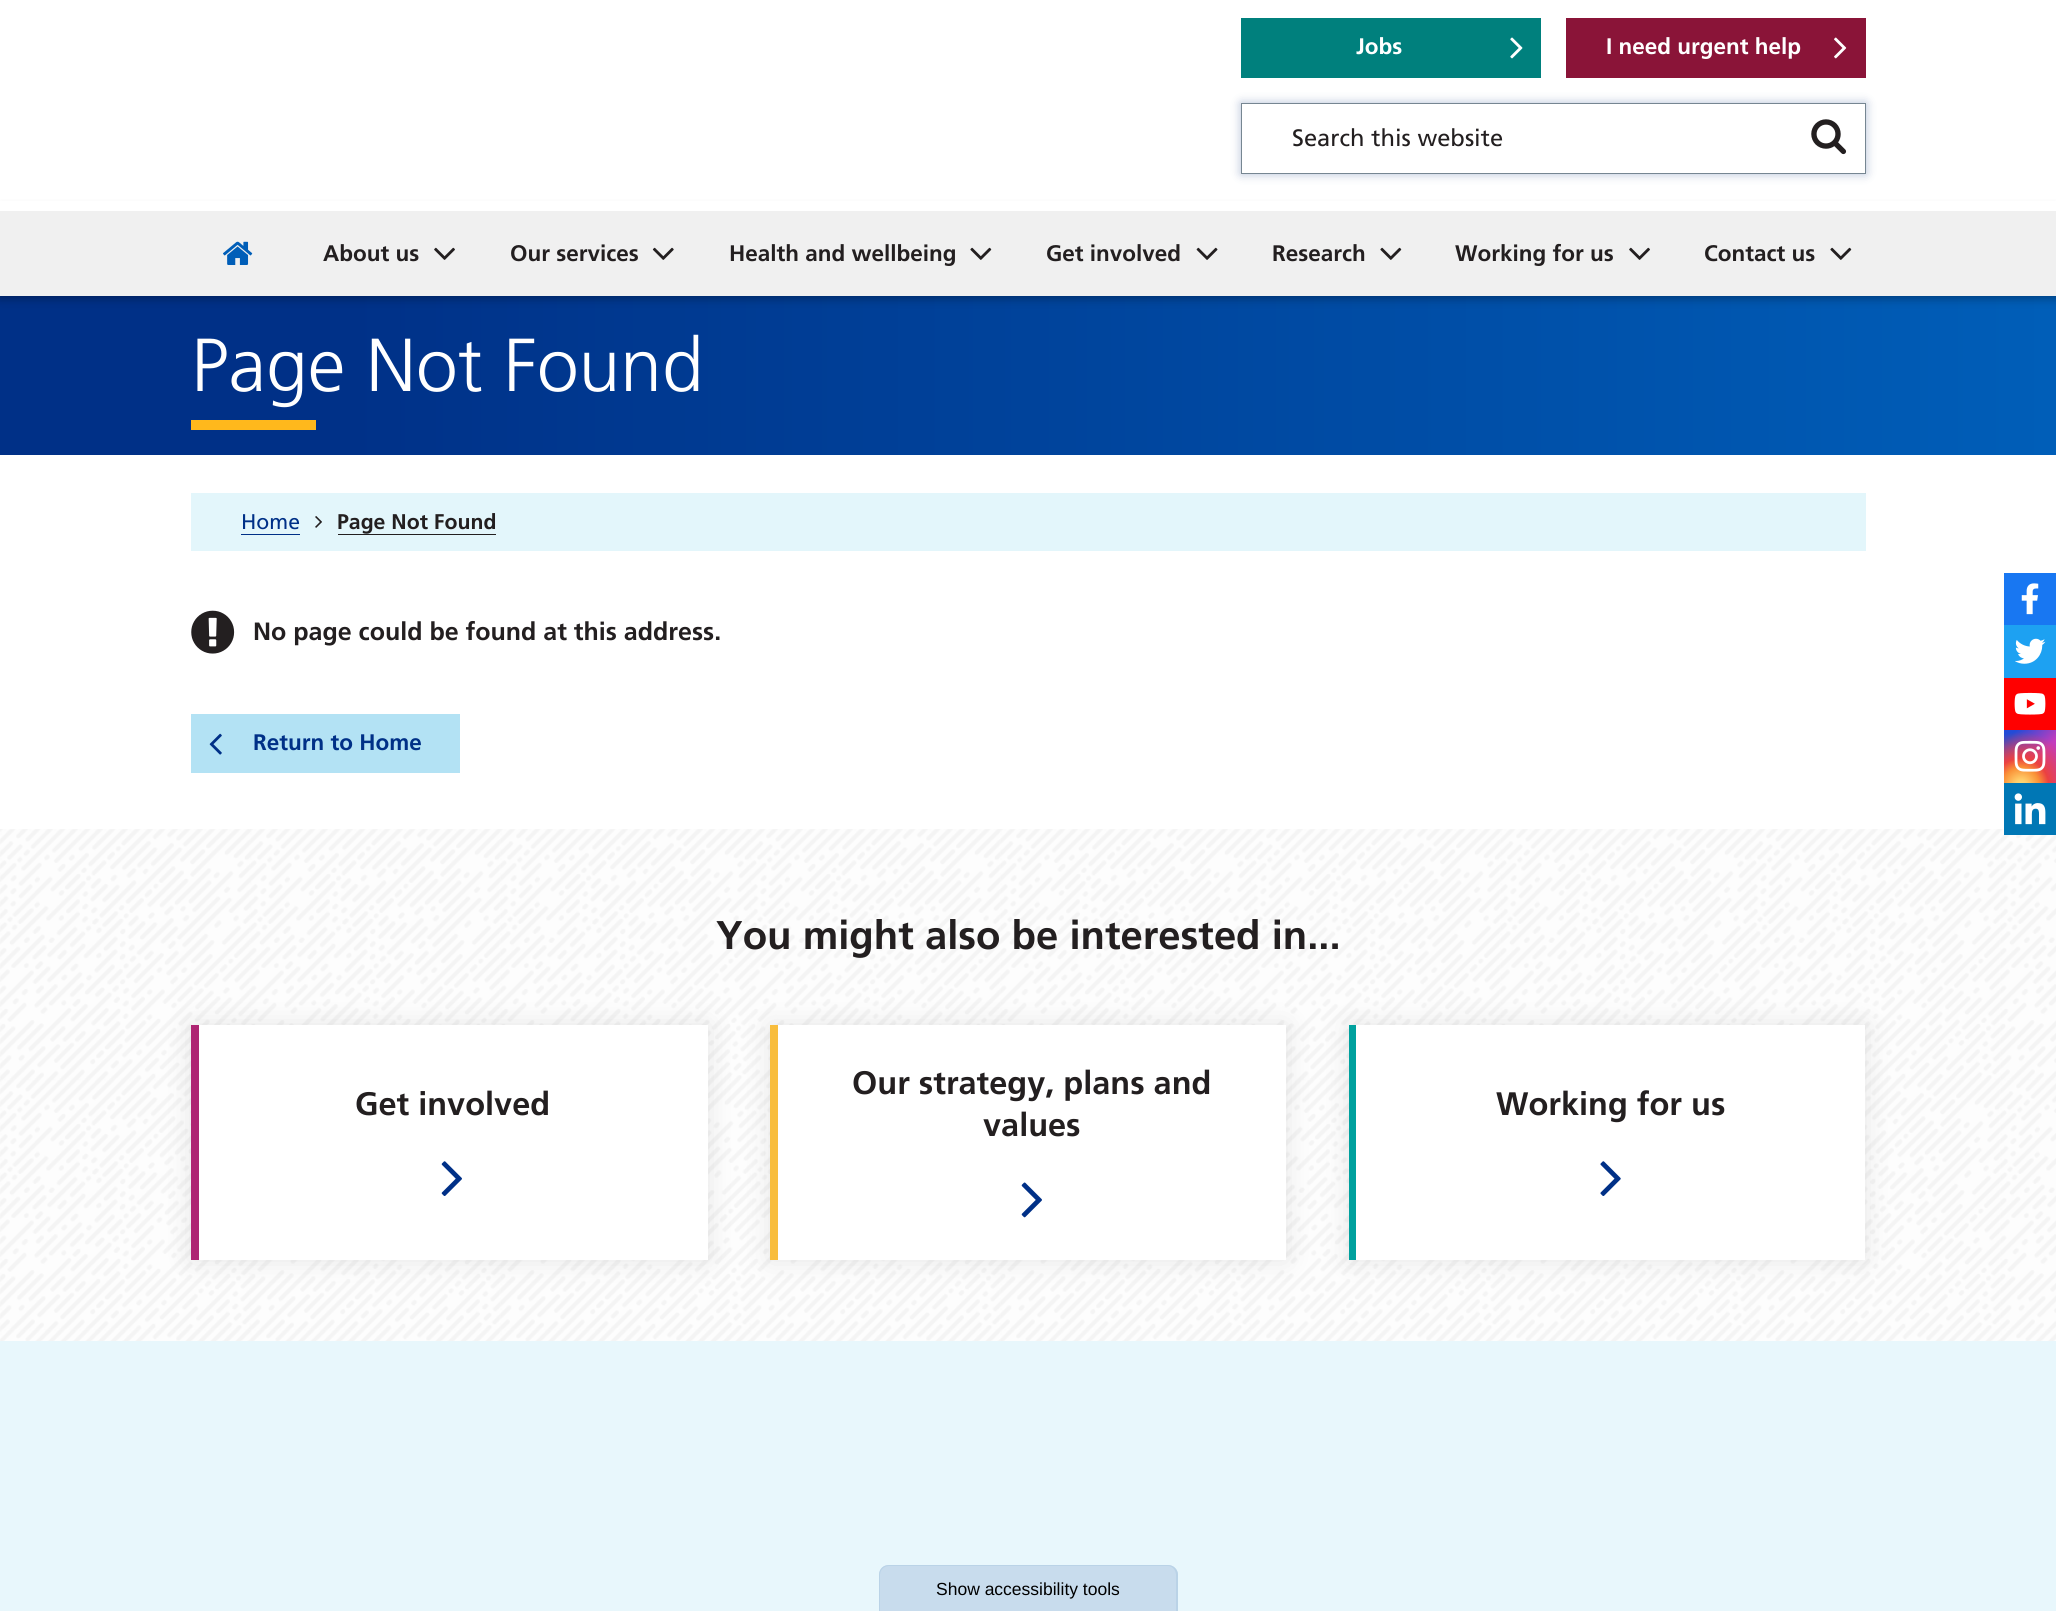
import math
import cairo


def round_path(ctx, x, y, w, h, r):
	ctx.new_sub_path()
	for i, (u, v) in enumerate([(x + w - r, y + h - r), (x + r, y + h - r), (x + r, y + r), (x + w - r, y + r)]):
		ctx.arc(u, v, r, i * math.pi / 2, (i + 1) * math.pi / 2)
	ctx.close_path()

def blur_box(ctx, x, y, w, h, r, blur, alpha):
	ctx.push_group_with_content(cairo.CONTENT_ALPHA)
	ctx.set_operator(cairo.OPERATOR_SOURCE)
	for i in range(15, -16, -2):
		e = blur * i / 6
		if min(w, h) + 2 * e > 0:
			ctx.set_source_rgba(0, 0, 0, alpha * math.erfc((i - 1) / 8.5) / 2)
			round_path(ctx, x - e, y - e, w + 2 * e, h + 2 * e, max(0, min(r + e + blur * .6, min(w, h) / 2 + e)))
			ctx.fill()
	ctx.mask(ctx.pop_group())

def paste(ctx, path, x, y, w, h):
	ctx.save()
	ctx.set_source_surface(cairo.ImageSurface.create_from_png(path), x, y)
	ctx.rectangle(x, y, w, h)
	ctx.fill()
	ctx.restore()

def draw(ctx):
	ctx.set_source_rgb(1, 1, 1)
	ctx.paint()
	ctx.set_source_rgb(0.941, 0.941, 0.941)
	ctx.rectangle(0, 211, 2056, 85)
	ctx.fill()
	gradient = cairo.LinearGradient(0, 376, 2056, 376)
	gradient.add_color_stop_rgba(0.15, 0, 0.188, 0.529, 1)
	gradient.add_color_stop_rgba(1, 0, 0.369, 0.722, 1)
	ctx.set_source(gradient)
	ctx.rectangle(0, 296, 2056, 159)
	ctx.fill()
	ctx.save()
	ctx.set_fill_rule(cairo.FILL_RULE_EVEN_ODD)
	ctx.new_path()
	ctx.move_to(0, 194)
	ctx.line_to(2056, 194)
	ctx.line_to(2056, 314)
	ctx.line_to(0, 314)
	ctx.close_path()
	ctx.move_to(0, 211)
	ctx.line_to(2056, 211)
	ctx.line_to(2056, 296)
	ctx.line_to(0, 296)
	ctx.close_path()
	ctx.clip()
	ctx.set_source_rgb(0, 0, 0)
	blur_box(ctx, -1, 210, 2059, 88, 0, 5, 0.35)
	ctx.restore()
	ctx.set_source_rgb(1, 1, 1)
	ctx.rectangle(0, 201, 2056, 10)
	ctx.fill()
	ctx.set_source_rgb(0, 0.502, 0.49)
	ctx.rectangle(1241, 18, 300, 60)
	ctx.fill()
	ctx.select_font_face('Frutiger', cairo.FONT_SLANT_NORMAL, cairo.FONT_WEIGHT_BOLD)
	ctx.set_font_size(22.5)
	ctx.set_source_rgb(1, 1, 1)
	ctx.move_to(1356, 54)
	ctx.show_text('Jobs')
	paste(ctx, 'media/1.png', 1510, 37, 13, 22)
	ctx.set_source_rgb(0.541, 0.082, 0.22)
	ctx.rectangle(1566, 18, 300, 60)
	ctx.fill()
	ctx.set_source_rgb(1, 1, 1)
	ctx.move_to(1606, 54)
	ctx.show_text('I need urgent help')
	paste(ctx, 'media/2.png', 1834, 37, 13, 22)
	ctx.set_source_rgb(0.149, 0.29, 0.553)
	blur_box(ctx, 1241, 103, 625, 71, 0, 5, 0.35)
	ctx.set_source_rgb(1, 1, 1)
	ctx.rectangle(1241.5, 103.5, 624, 70)
	ctx.fill_preserve()
	ctx.set_source_rgb(0.463, 0.525, 0.573)
	ctx.set_line_width(1)
	ctx.stroke()
	ctx.select_font_face('Frutiger')
	ctx.set_font_size(23.75)
	ctx.set_source_rgb(0.137, 0.122, 0.125)
	ctx.move_to(1292, 146)
	ctx.show_text('Search this website')
	paste(ctx, 'media/3.png', 1811, 119, 36, 36)
	ctx.set_source_rgb(0.941, 0.941, 0.941)
	ctx.rectangle(191, 211, 1675, 1)
	ctx.fill()
	paste(ctx, 'media/4.png', 223, 241, 30, 24)
	ctx.select_font_face('Frutiger', cairo.FONT_SLANT_NORMAL, cairo.FONT_WEIGHT_BOLD)
	ctx.set_font_size(22.5)
	ctx.set_source_rgb(0.137, 0.122, 0.125)
	ctx.move_to(323, 261)
	ctx.show_text('About us')
	paste(ctx, 'media/5.png', 434, 247, 21, 13)
	ctx.move_to(510, 261)
	ctx.show_text('Our services')
	paste(ctx, 'media/6.png', 652, 247, 22, 13)
	ctx.move_to(729, 261)
	ctx.show_text('Health and wellbeing')
	paste(ctx, 'media/7.png', 970, 247, 22, 13)
	ctx.move_to(1046, 261)
	ctx.show_text('Get involved')
	paste(ctx, 'media/8.png', 1196, 247, 22, 13)
	ctx.move_to(1272, 261)
	ctx.show_text('Research')
	paste(ctx, 'media/7.png', 1380, 247, 22, 13)
	ctx.move_to(1455, 261)
	ctx.show_text('Working for us')
	paste(ctx, 'media/5.png', 1629, 247, 21, 13)
	ctx.move_to(1704, 261)
	ctx.show_text('Contact us')
	paste(ctx, 'media/7.png', 1830, 247, 22, 13)
	ctx.set_source_rgb(0.094, 0.467, 0.949)
	ctx.rectangle(2004, 573, 52, 52)
	ctx.fill()
	paste(ctx, 'media/9.png', 2021, 583, 18, 32)
	ctx.set_source_rgb(0.114, 0.631, 0.949)
	ctx.rectangle(2004, 625, 52, 53)
	ctx.fill()
	paste(ctx, 'media/10.png', 2015, 638, 31, 26)
	ctx.set_source_rgb(1, 0, 0)
	ctx.rectangle(2004, 678, 52, 52)
	ctx.fill()
	paste(ctx, 'media/11.png', 2014, 692, 32, 23)
	gradient = cairo.LinearGradient(2004, 730, 2056, 783)
	gradient.add_color_stop_rgba(0.12, 0.137, 0.294, 0.843, 1)
	gradient.add_color_stop_rgba(0.58, 0.765, 0.235, 0.745, 1)
	ctx.set_source(gradient)
	ctx.rectangle(2004, 730, 52, 53)
	ctx.fill()
	gradient = cairo.RadialGradient(2021, 786, 0, 2021, 786, 66)
	gradient.add_color_stop_rgba(0, 1, 0.882, 0.49, 1)
	gradient.add_color_stop_rgba(0.1, 1, 0.804, 0.412, 1)
	gradient.add_color_stop_rgba(0.28, 0.98, 0.569, 0.216, 1)
	gradient.add_color_stop_rgba(0.42, 0.922, 0.255, 0.255, 1)
	gradient.add_color_stop_rgba(0.82, 0.922, 0.255, 0.255, 0)
	ctx.set_source(gradient)
	ctx.rectangle(2004, 732, 52, 51)
	ctx.fill()
	paste(ctx, 'media/12.png', 2014, 740, 32, 32)
	paste(ctx, 'media/17.png', 0, 829, 2056, 512)
	ctx.set_source_rgb(0, 0.467, 0.71)
	ctx.rectangle(2004, 783, 52, 52)
	ctx.fill()
	paste(ctx, 'media/13.png', 2014, 793, 32, 32)
	ctx.select_font_face('Frutiger Light')
	ctx.set_font_size(75)
	ctx.set_source_rgb(1, 1, 1)
	ctx.move_to(191, 391)
	ctx.show_text('Page Not Found')
	ctx.set_source_rgb(1, 0.722, 0.11)
	ctx.rectangle(191, 420, 125, 10)
	ctx.fill()
	ctx.set_source_rgb(0.89, 0.961, 0.984)
	ctx.rectangle(191, 493, 1675, 58)
	ctx.fill()
	ctx.select_font_face('Frutiger')
	ctx.set_font_size(21.25)
	ctx.set_source_rgb(0, 0.188, 0.529)
	ctx.move_to(241, 529)
	ctx.show_text('Home')
	ctx.rectangle(241, 534, 59, 1)
	ctx.fill()
	paste(ctx, 'media/14.png', 315, 516, 7, 12)
	ctx.select_font_face('Frutiger', cairo.FONT_SLANT_NORMAL, cairo.FONT_WEIGHT_BOLD)
	ctx.set_source_rgb(0.137, 0.122, 0.125)
	ctx.move_to(337, 529)
	ctx.show_text('Page Not Found')
	ctx.rectangle(338, 534, 158, 1)
	ctx.fill()
	paste(ctx, 'media/15.png', 191, 610, 44, 44)
	ctx.set_font_size(25)
	ctx.move_to(253, 640)
	ctx.show_text('No page could be found at this address.')
	ctx.set_source_rgb(0.702, 0.886, 0.957)
	ctx.rectangle(191, 714, 269, 59)
	ctx.fill()
	paste(ctx, 'media/16.png', 209, 733, 13, 22)
	ctx.set_font_size(22.5)
	ctx.set_source_rgb(0, 0.188, 0.529)
	ctx.move_to(253, 750)
	ctx.show_text('Return to Home')
	ctx.set_font_size(40)
	ctx.set_source_rgb(0.137, 0.122, 0.125)
	ctx.move_to(716, 949)
	ctx.show_text('You might also be interested in...')
	ctx.set_source_rgb(0, 0, 0)
	blur_box(ctx, 191, 1025, 517, 235, 0, 12.5, 0.1)
	ctx.set_source_rgb(1, 1, 1)
	ctx.rectangle(199, 1025, 509, 235)
	ctx.fill()
	ctx.set_source_rgb(0.682, 0.145, 0.451)
	ctx.rectangle(191, 1025, 8, 235)
	ctx.fill()
	ctx.set_font_size(32.5)
	ctx.set_source_rgb(0.137, 0.122, 0.125)
	ctx.move_to(355, 1115)
	ctx.show_text('Get involved')
	paste(ctx, 'media/18.png', 441, 1161, 21, 35)
	ctx.set_source_rgb(0, 0, 0)
	blur_box(ctx, 770, 1025, 516, 235, 0, 12.5, 0.1)
	ctx.set_source_rgb(1, 1, 1)
	ctx.rectangle(778, 1025, 508, 235)
	ctx.fill()
	ctx.set_source_rgb(0.969, 0.741, 0.239)
	ctx.rectangle(770, 1025, 8, 235)
	ctx.fill()
	ctx.set_source_rgb(0.137, 0.122, 0.125)
	ctx.move_to(852, 1094)
	ctx.show_text('Our strategy, plans and')
	ctx.move_to(983, 1136)
	ctx.show_text('values')
	paste(ctx, 'media/19.png', 1021, 1182, 21, 36)
	ctx.set_source_rgb(0, 0, 0)
	blur_box(ctx, 1349, 1025, 516, 235, 0, 12.5, 0.1)
	ctx.set_source_rgb(1, 1, 1)
	ctx.rectangle(1356, 1025, 509, 235)
	ctx.fill()
	ctx.set_source_rgb(0, 0.631, 0.62)
	ctx.rectangle(1349, 1025, 7, 235)
	ctx.fill()
	ctx.set_source_rgb(0.137, 0.122, 0.125)
	ctx.move_to(1496, 1115)
	ctx.show_text('Working for us')
	paste(ctx, 'media/20.png', 1600, 1161, 21, 35)
	ctx.set_source_rgb(0.91, 0.965, 0.988)
	ctx.rectangle(0, 1341, 2056, 270)
	ctx.fill()
	ctx.set_source_rgb(0.784, 0.863, 0.929)
	ctx.new_path()
	ctx.move_to(889, 1565)
	ctx.line_to(1168, 1565)
	ctx.curve_to(1173.5, 1565, 1178, 1569.5, 1178, 1575)
	ctx.line_to(1178, 1611)
	ctx.line_to(879, 1611)
	ctx.line_to(879, 1575)
	ctx.curve_to(879, 1569.5, 883.5, 1565, 889, 1565)
	ctx.close_path()
	ctx.fill()
	ctx.set_source_rgb(0.729, 0.827, 0.906)
	ctx.set_fill_rule(cairo.FILL_RULE_EVEN_ODD)
	ctx.new_path()
	ctx.move_to(889, 1565)
	ctx.line_to(1168, 1565)
	ctx.curve_to(1173, 1565, 1178, 1569, 1178, 1575)
	ctx.line_to(1178, 1611)
	ctx.line_to(879, 1611)
	ctx.line_to(879, 1575)
	ctx.curve_to(879, 1569, 883, 1565, 889, 1565)
	ctx.close_path()
	ctx.move_to(889, 1566)
	ctx.line_to(1168, 1566)
	ctx.curve_to(1172, 1566, 1176, 1570, 1176, 1575)
	ctx.line_to(1176, 1611)
	ctx.line_to(880, 1611)
	ctx.line_to(880, 1575)
	ctx.curve_to(880, 1570, 884, 1566, 889, 1566)
	ctx.close_path()
	ctx.fill()
	ctx.select_font_face('Liberation Sans')
	ctx.set_font_size(17.5)
	ctx.set_source_rgb(0, 0, 0)
	ctx.move_to(936, 1595)
	ctx.show_text('Show accessibility tools')


surface = cairo.ImageSurface(cairo.FORMAT_RGB24, 2056, 1611)
ctx = cairo.Context(surface)
options = cairo.FontOptions()
options.set_hint_metrics(cairo.HINT_METRICS_OFF)
options.set_hint_style(cairo.HINT_STYLE_NONE)
ctx.set_font_options(options)
ctx.set_miter_limit(4)
draw(ctx)
surface.write_to_png('image.png')
